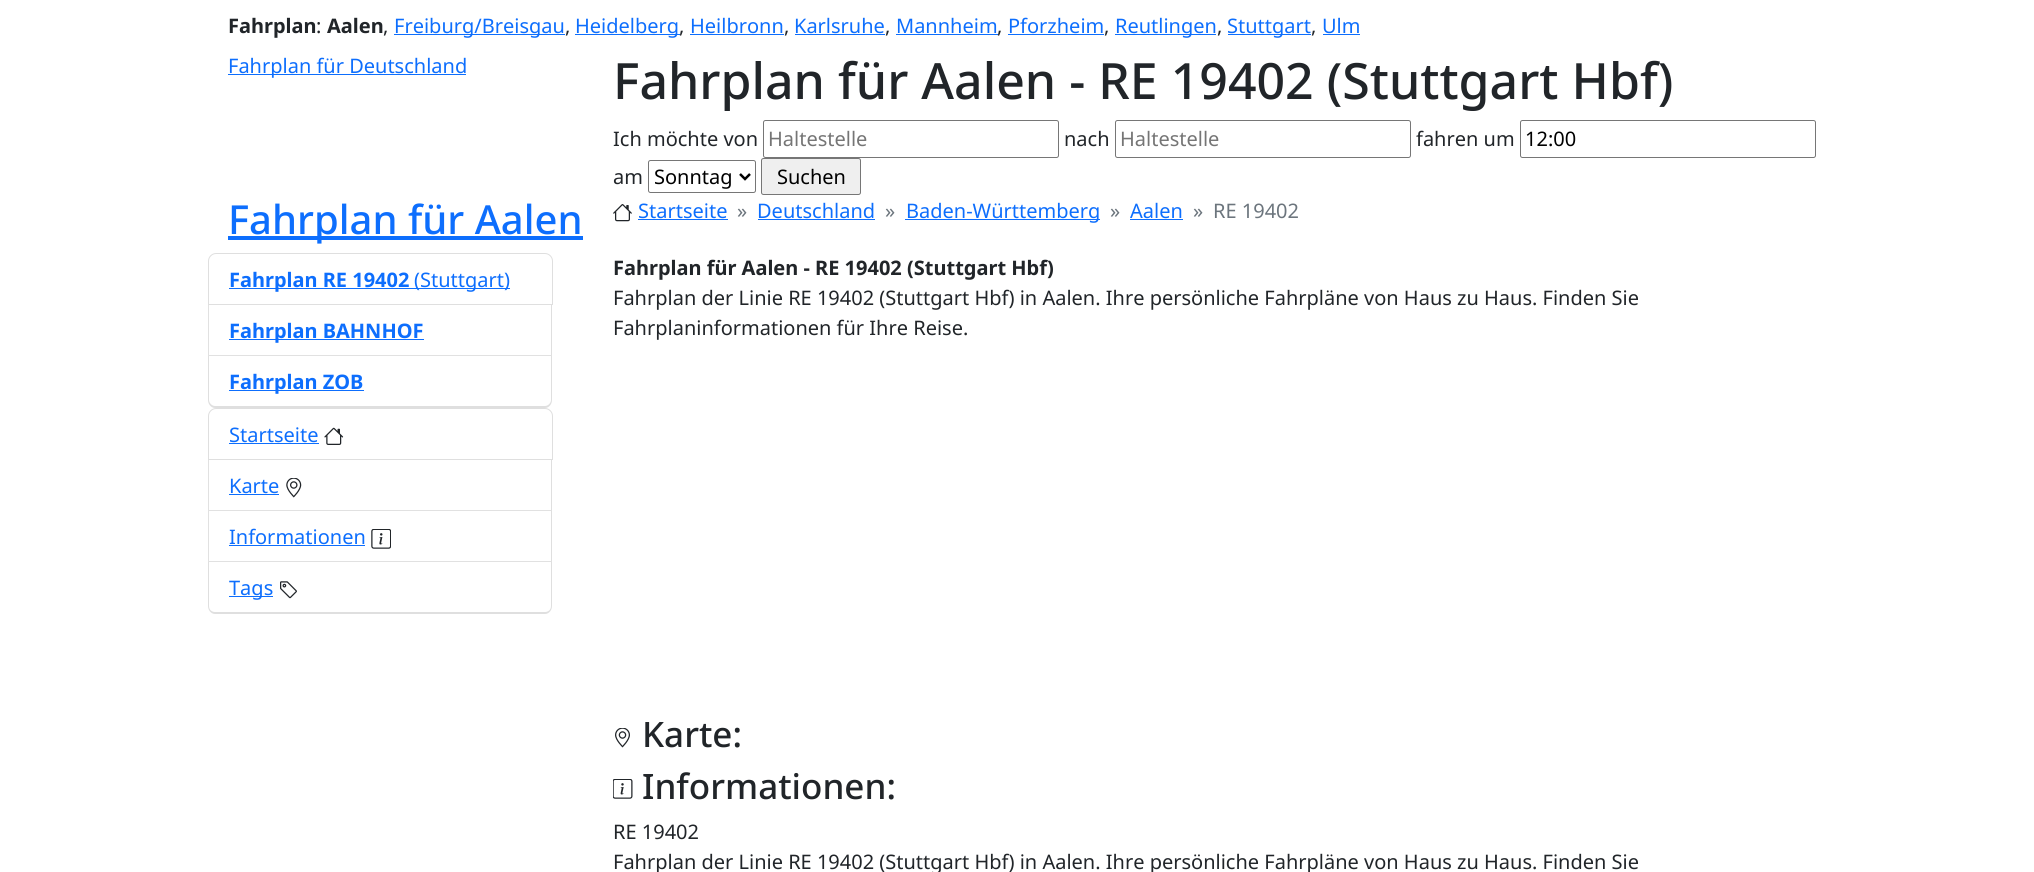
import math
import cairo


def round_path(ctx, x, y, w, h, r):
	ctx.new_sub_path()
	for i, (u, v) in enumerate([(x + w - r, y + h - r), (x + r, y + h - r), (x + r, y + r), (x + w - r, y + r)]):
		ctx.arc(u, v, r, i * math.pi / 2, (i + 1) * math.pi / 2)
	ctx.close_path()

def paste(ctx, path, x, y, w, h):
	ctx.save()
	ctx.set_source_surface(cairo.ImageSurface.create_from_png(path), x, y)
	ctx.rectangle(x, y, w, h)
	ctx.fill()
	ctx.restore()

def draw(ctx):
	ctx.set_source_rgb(1, 1, 1)
	ctx.paint()
	ctx.select_font_face('Noto Sans', cairo.FONT_SLANT_NORMAL, cairo.FONT_WEIGHT_BOLD)
	ctx.set_font_size(20)
	ctx.set_source_rgb(0.129, 0.145, 0.161)
	ctx.move_to(228, 33)
	ctx.show_text('Fahrplan')
	ctx.select_font_face('Noto Sans')
	ctx.move_to(316, 33)
	ctx.show_text(':')
	ctx.select_font_face('Noto Sans', cairo.FONT_SLANT_NORMAL, cairo.FONT_WEIGHT_BOLD)
	ctx.move_to(327, 33)
	ctx.show_text('Aalen')
	ctx.select_font_face('Noto Sans')
	ctx.move_to(383, 33)
	ctx.show_text(',')
	ctx.set_source_rgb(0.051, 0.431, 0.992)
	ctx.rectangle(394, 34, 171, 1)
	ctx.fill()
	ctx.move_to(394, 33)
	ctx.show_text('Freiburg/Breisgau')
	ctx.set_source_rgb(0.129, 0.145, 0.161)
	ctx.move_to(565, 33)
	ctx.show_text(',')
	ctx.set_source_rgb(0.051, 0.431, 0.992)
	ctx.rectangle(575, 34, 105, 1)
	ctx.fill()
	ctx.move_to(575, 33)
	ctx.show_text('Heidelberg')
	ctx.set_source_rgb(0.129, 0.145, 0.161)
	ctx.move_to(679, 33)
	ctx.show_text(',')
	ctx.set_source_rgb(0.051, 0.431, 0.992)
	ctx.move_to(690, 33)
	ctx.show_text('Heilbronn')
	ctx.rectangle(690, 34, 94, 1)
	ctx.fill()
	ctx.set_source_rgb(0.129, 0.145, 0.161)
	ctx.move_to(784, 33)
	ctx.show_text(',')
	ctx.set_source_rgb(0.051, 0.431, 0.992)
	ctx.move_to(794, 33)
	ctx.show_text('Karlsruhe')
	ctx.rectangle(795, 34, 90, 1)
	ctx.fill()
	ctx.set_source_rgb(0.129, 0.145, 0.161)
	ctx.move_to(885, 33)
	ctx.show_text(',')
	ctx.set_source_rgb(0.051, 0.431, 0.992)
	ctx.move_to(896, 33)
	ctx.show_text('Mannheim')
	ctx.rectangle(896, 34, 102, 1)
	ctx.fill()
	ctx.set_source_rgb(0.129, 0.145, 0.161)
	ctx.move_to(997, 33)
	ctx.show_text(',')
	ctx.set_source_rgb(0.051, 0.431, 0.992)
	ctx.move_to(1008, 33)
	ctx.show_text('Pforzheim')
	ctx.rectangle(1008, 34, 96, 1)
	ctx.fill()
	ctx.set_source_rgb(0.129, 0.145, 0.161)
	ctx.move_to(1104, 33)
	ctx.show_text(',')
	ctx.set_source_rgb(0.051, 0.431, 0.992)
	ctx.rectangle(1115, 34, 101, 1)
	ctx.fill()
	ctx.move_to(1115, 33)
	ctx.show_text('Reutlingen')
	ctx.set_source_rgb(0.129, 0.145, 0.161)
	ctx.move_to(1217, 33)
	ctx.show_text(',')
	ctx.set_source_rgb(0.051, 0.431, 0.992)
	ctx.rectangle(1228, 34, 83, 1)
	ctx.fill()
	ctx.move_to(1227, 33)
	ctx.show_text('Stuttgart')
	ctx.set_source_rgb(0.129, 0.145, 0.161)
	ctx.move_to(1311, 33)
	ctx.show_text(',')
	ctx.set_source_rgb(0.051, 0.431, 0.992)
	ctx.move_to(1322, 33)
	ctx.show_text('Ulm')
	ctx.rectangle(1323, 34, 37, 1)
	ctx.fill()
	ctx.rectangle(228, 74, 238, 1)
	ctx.fill()
	ctx.move_to(228, 73)
	ctx.show_text('Fahrplan für Deutschland')
	ctx.select_font_face('Noto Sans Medium')
	ctx.set_font_size(50)
	ctx.set_source_rgb(0.129, 0.145, 0.161)
	ctx.move_to(613, 99)
	ctx.show_text('Fahrplan für Aalen - RE 19402 (Stuttgart Hbf)')
	ctx.select_font_face('Noto Sans')
	ctx.set_font_size(20)
	ctx.move_to(613, 146)
	ctx.show_text('Ich möchte von')
	round_path(ctx, 763.5, 120.5, 295, 37, 2)
	ctx.set_source_rgb(0.463, 0.463, 0.463)
	ctx.set_line_width(1)
	ctx.stroke()
	ctx.set_source_rgb(0.459, 0.459, 0.459)
	ctx.move_to(768, 146)
	ctx.show_text('Haltestelle')
	ctx.set_source_rgb(0.129, 0.145, 0.161)
	ctx.move_to(1064, 146)
	ctx.show_text('nach')
	round_path(ctx, 1115.5, 120.5, 295, 37, 2)
	ctx.set_source_rgb(0.463, 0.463, 0.463)
	ctx.stroke()
	ctx.set_source_rgb(0.459, 0.459, 0.459)
	ctx.move_to(1120, 146)
	ctx.show_text('Haltestelle')
	ctx.set_source_rgb(0.129, 0.145, 0.161)
	ctx.move_to(1416, 146)
	ctx.show_text('fahren um')
	round_path(ctx, 1520.5, 120.5, 295, 37, 2)
	ctx.set_source_rgb(0.463, 0.463, 0.463)
	ctx.stroke()
	ctx.set_source_rgb(0, 0, 0)
	ctx.move_to(1525, 146)
	ctx.show_text('12:00')
	ctx.set_source_rgb(0.129, 0.145, 0.161)
	ctx.move_to(613, 184)
	ctx.show_text('am')
	round_path(ctx, 648.5, 160.5, 107, 32, 2)
	ctx.set_source_rgb(0.463, 0.463, 0.463)
	ctx.stroke()
	ctx.new_path()
	ctx.move_to(740, 174)
	ctx.line_to(745, 179)
	ctx.line_to(750, 174)
	ctx.set_source_rgb(0, 0, 0)
	ctx.set_line_width(2.5)
	ctx.stroke()
	ctx.move_to(654, 184)
	ctx.show_text('Sonntag')
	ctx.set_source_rgb(0.937, 0.937, 0.937)
	round_path(ctx, 761.5, 158.5, 99, 36, 2)
	ctx.fill_preserve()
	ctx.set_source_rgb(0.463, 0.463, 0.463)
	ctx.set_line_width(1)
	ctx.stroke()
	ctx.set_source_rgb(0, 0, 0)
	ctx.move_to(777, 184)
	ctx.show_text('Suchen')
	ctx.set_source_rgb(0.051, 0.431, 0.992)
	ctx.rectangle(228, 236, 355, 4)
	ctx.fill()
	ctx.select_font_face('Noto Sans Medium')
	ctx.set_font_size(40)
	ctx.move_to(228, 234)
	ctx.show_text('Fahrplan für Aalen')
	paste(ctx, 'media/1.png', 613, 204, 19, 18)
	ctx.select_font_face('Noto Sans')
	ctx.set_font_size(20)
	ctx.move_to(638, 218)
	ctx.show_text('Startseite')
	ctx.rectangle(638, 219, 90, 1)
	ctx.fill()
	ctx.set_source_rgb(0.424, 0.459, 0.49)
	ctx.move_to(737, 218)
	ctx.show_text('»')
	ctx.set_source_rgb(0.051, 0.431, 0.992)
	ctx.move_to(757, 218)
	ctx.show_text('Deutschland')
	ctx.rectangle(758, 219, 117, 1)
	ctx.fill()
	ctx.set_source_rgb(0.424, 0.459, 0.49)
	ctx.move_to(885, 218)
	ctx.show_text('»')
	ctx.set_source_rgb(0.051, 0.431, 0.992)
	ctx.rectangle(905, 219, 195, 1)
	ctx.fill()
	ctx.move_to(906, 218)
	ctx.show_text('Baden-Württemberg')
	ctx.set_source_rgb(0.424, 0.459, 0.49)
	ctx.move_to(1110, 218)
	ctx.show_text('»')
	ctx.set_source_rgb(0.051, 0.431, 0.992)
	ctx.move_to(1130, 218)
	ctx.show_text('Aalen')
	ctx.rectangle(1130, 219, 53, 1)
	ctx.fill()
	ctx.set_source_rgb(0.424, 0.459, 0.49)
	ctx.move_to(1193, 218)
	ctx.show_text('»')
	ctx.move_to(1213, 218)
	ctx.show_text('RE 19402')
	ctx.new_path()
	ctx.move_to(216, 253.5)
	ctx.line_to(545, 253.5)
	ctx.curve_to(549, 253.5, 552.5, 257, 552.5, 261)
	ctx.line_to(552.5, 304.5)
	ctx.line_to(208.5, 304.5)
	ctx.line_to(208.5, 261)
	ctx.curve_to(208.5, 257, 212, 253.5, 216, 253.5)
	ctx.close_path()
	ctx.set_source_rgb(0.875, 0.875, 0.875)
	ctx.stroke()
	ctx.set_source_rgb(0.051, 0.431, 0.992)
	ctx.rectangle(229, 288, 281, 1)
	ctx.fill()
	ctx.select_font_face('Noto Sans', cairo.FONT_SLANT_NORMAL, cairo.FONT_WEIGHT_BOLD)
	ctx.move_to(229, 287)
	ctx.show_text('Fahrplan RE 19402')
	ctx.select_font_face('Noto Sans')
	ctx.move_to(414, 287)
	ctx.show_text('(Stuttgart)')
	ctx.set_source_rgb(0.875, 0.875, 0.875)
	ctx.new_path()
	ctx.move_to(552, 305)
	ctx.line_to(552, 356)
	ctx.line_to(551, 355)
	ctx.line_to(551, 305)
	ctx.close_path()
	ctx.fill()
	ctx.set_source_rgba(0, 0, 0, 0.12)
	ctx.new_path()
	ctx.move_to(552, 356)
	ctx.line_to(208, 356)
	ctx.line_to(209, 355)
	ctx.line_to(551, 355)
	ctx.close_path()
	ctx.fill()
	ctx.new_path()
	ctx.move_to(208, 356)
	ctx.line_to(208, 305)
	ctx.line_to(209, 305)
	ctx.line_to(209, 355)
	ctx.close_path()
	ctx.fill()
	ctx.set_source_rgb(0.051, 0.431, 0.992)
	ctx.rectangle(229, 339, 195, 1)
	ctx.fill()
	ctx.select_font_face('Noto Sans', cairo.FONT_SLANT_NORMAL, cairo.FONT_WEIGHT_BOLD)
	ctx.move_to(229, 338)
	ctx.show_text('Fahrplan BAHNHOF')
	ctx.set_source_rgb(0.875, 0.875, 0.875)
	ctx.set_fill_rule(cairo.FILL_RULE_EVEN_ODD)
	ctx.new_path()
	ctx.move_to(208, 356)
	ctx.line_to(552, 356)
	ctx.line_to(552, 400)
	ctx.curve_to(552, 404, 549, 408, 545, 408)
	ctx.line_to(215, 408)
	ctx.curve_to(211, 408, 208, 404, 208, 400)
	ctx.close_path()
	ctx.move_to(209, 356)
	ctx.line_to(551, 356)
	ctx.line_to(551, 400)
	ctx.curve_to(551, 403, 548, 406, 545, 406)
	ctx.line_to(215, 406)
	ctx.curve_to(212, 406, 209, 403, 209, 400)
	ctx.close_path()
	ctx.fill()
	ctx.set_source_rgb(0.051, 0.431, 0.992)
	ctx.rectangle(229, 390, 135, 1)
	ctx.fill()
	ctx.move_to(229, 389)
	ctx.show_text('Fahrplan ZOB')
	ctx.new_path()
	ctx.move_to(216, 408.5)
	ctx.line_to(545, 408.5)
	ctx.curve_to(549, 408.5, 552.5, 412, 552.5, 416)
	ctx.line_to(552.5, 459.5)
	ctx.line_to(208.5, 459.5)
	ctx.line_to(208.5, 416)
	ctx.curve_to(208.5, 412, 212, 408.5, 216, 408.5)
	ctx.close_path()
	ctx.set_source_rgb(0.875, 0.875, 0.875)
	ctx.stroke()
	ctx.select_font_face('Noto Sans')
	ctx.set_source_rgb(0.051, 0.431, 0.992)
	ctx.move_to(229, 442)
	ctx.show_text('Startseite')
	ctx.rectangle(229, 443, 90, 1)
	ctx.fill()
	paste(ctx, 'media/2.png', 324, 427, 20, 18)
	ctx.set_source_rgb(0.875, 0.875, 0.875)
	ctx.set_fill_rule(cairo.FILL_RULE_WINDING)
	ctx.new_path()
	ctx.move_to(552, 460)
	ctx.line_to(552, 511)
	ctx.line_to(551, 510)
	ctx.line_to(551, 460)
	ctx.close_path()
	ctx.fill()
	ctx.set_source_rgba(0, 0, 0, 0.12)
	ctx.new_path()
	ctx.move_to(552, 511)
	ctx.line_to(208, 511)
	ctx.line_to(209, 510)
	ctx.line_to(551, 510)
	ctx.close_path()
	ctx.fill()
	ctx.new_path()
	ctx.move_to(208, 511)
	ctx.line_to(208, 460)
	ctx.line_to(209, 460)
	ctx.line_to(209, 510)
	ctx.close_path()
	ctx.fill()
	ctx.set_source_rgb(0.051, 0.431, 0.992)
	ctx.move_to(229, 493)
	ctx.show_text('Karte')
	ctx.rectangle(229, 494, 50, 1)
	ctx.fill()
	paste(ctx, 'media/3.png', 286, 478, 16, 20)
	ctx.set_source_rgb(0.875, 0.875, 0.875)
	ctx.new_path()
	ctx.move_to(552, 511)
	ctx.line_to(552, 562)
	ctx.line_to(551, 561)
	ctx.line_to(551, 511)
	ctx.close_path()
	ctx.fill()
	ctx.set_source_rgba(0, 0, 0, 0.12)
	ctx.new_path()
	ctx.move_to(552, 562)
	ctx.line_to(208, 562)
	ctx.line_to(209, 561)
	ctx.line_to(551, 561)
	ctx.close_path()
	ctx.fill()
	ctx.new_path()
	ctx.move_to(208, 562)
	ctx.line_to(208, 511)
	ctx.line_to(209, 511)
	ctx.line_to(209, 561)
	ctx.close_path()
	ctx.fill()
	ctx.set_source_rgb(0.051, 0.431, 0.992)
	ctx.move_to(229, 544)
	ctx.show_text('Informationen')
	ctx.rectangle(229, 545, 136, 1)
	ctx.fill()
	paste(ctx, 'media/4.png', 371, 529, 20, 20)
	ctx.set_source_rgb(0.875, 0.875, 0.875)
	ctx.set_fill_rule(cairo.FILL_RULE_EVEN_ODD)
	ctx.new_path()
	ctx.move_to(208, 562)
	ctx.line_to(552, 562)
	ctx.line_to(552, 606)
	ctx.curve_to(552, 610, 549, 614, 545, 614)
	ctx.line_to(215, 614)
	ctx.curve_to(211, 614, 208, 610, 208, 606)
	ctx.close_path()
	ctx.move_to(209, 562)
	ctx.line_to(551, 562)
	ctx.line_to(551, 606)
	ctx.curve_to(551, 610, 548, 612, 545, 612)
	ctx.line_to(215, 612)
	ctx.curve_to(212, 612, 209, 610, 209, 606)
	ctx.close_path()
	ctx.fill()
	ctx.set_source_rgb(0.051, 0.431, 0.992)
	ctx.rectangle(229, 596, 44, 1)
	ctx.fill()
	ctx.move_to(229, 595)
	ctx.show_text('Tags')
	paste(ctx, 'media/5.png', 280, 581, 17, 18)
	ctx.select_font_face('Noto Sans', cairo.FONT_SLANT_NORMAL, cairo.FONT_WEIGHT_BOLD)
	ctx.set_source_rgb(0.129, 0.145, 0.161)
	ctx.move_to(613, 275)
	ctx.show_text('Fahrplan für Aalen - RE 19402 (Stuttgart Hbf)')
	ctx.select_font_face('Noto Sans')
	ctx.move_to(613, 305)
	ctx.show_text('Fahrplan der Linie RE 19402 (Stuttgart Hbf) in Aalen. Ihre persönliche Fahrpläne von Haus zu Haus. Finden Sie')
	ctx.move_to(613, 335)
	ctx.show_text('Fahrplaninformationen für Ihre Reise.')
	paste(ctx, 'media/6.png', 615, 728, 15, 20)
	ctx.select_font_face('Noto Sans Medium')
	ctx.set_font_size(35)
	ctx.move_to(642, 747)
	ctx.show_text('Karte:')
	paste(ctx, 'media/7.png', 613, 779, 20, 20)
	ctx.move_to(642, 799)
	ctx.show_text('Informationen:')
	ctx.select_font_face('Noto Sans')
	ctx.set_font_size(20)
	ctx.move_to(613, 839)
	ctx.show_text('RE 19402')
	ctx.move_to(613, 869)
	ctx.show_text('Fahrplan der Linie RE 19402 (Stuttgart Hbf) in Aalen. Ihre persönliche Fahrpläne von Haus zu Haus. Finden Sie')


surface = cairo.ImageSurface(cairo.FORMAT_RGB24, 2034, 872)
ctx = cairo.Context(surface)
options = cairo.FontOptions()
options.set_hint_metrics(cairo.HINT_METRICS_OFF)
options.set_hint_style(cairo.HINT_STYLE_NONE)
ctx.set_font_options(options)
ctx.set_miter_limit(4)
draw(ctx)
surface.write_to_png('image.png')
